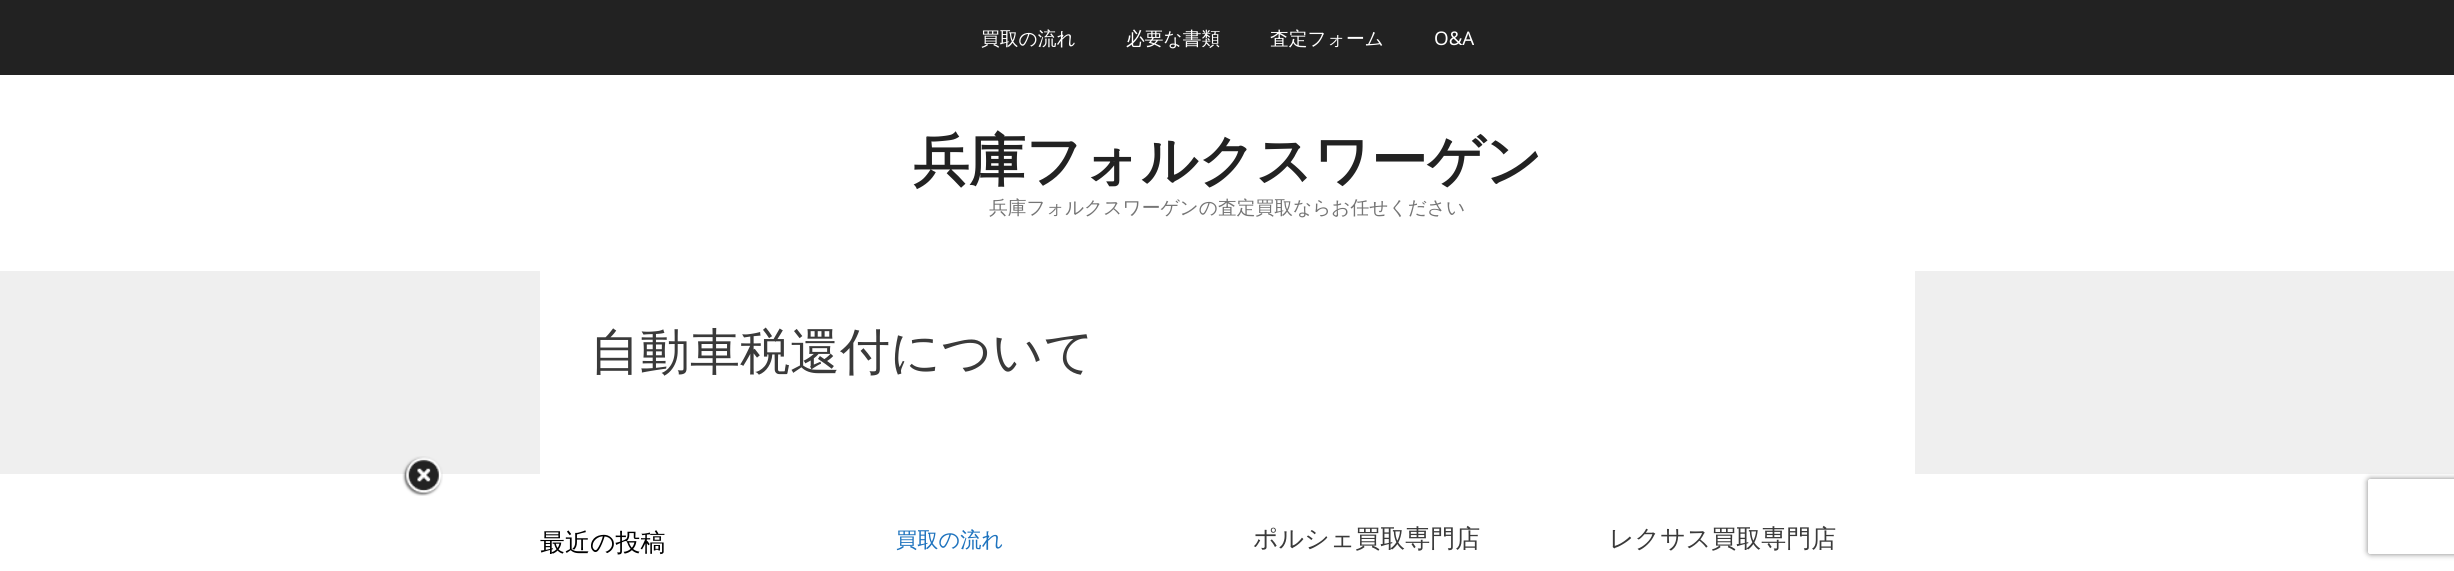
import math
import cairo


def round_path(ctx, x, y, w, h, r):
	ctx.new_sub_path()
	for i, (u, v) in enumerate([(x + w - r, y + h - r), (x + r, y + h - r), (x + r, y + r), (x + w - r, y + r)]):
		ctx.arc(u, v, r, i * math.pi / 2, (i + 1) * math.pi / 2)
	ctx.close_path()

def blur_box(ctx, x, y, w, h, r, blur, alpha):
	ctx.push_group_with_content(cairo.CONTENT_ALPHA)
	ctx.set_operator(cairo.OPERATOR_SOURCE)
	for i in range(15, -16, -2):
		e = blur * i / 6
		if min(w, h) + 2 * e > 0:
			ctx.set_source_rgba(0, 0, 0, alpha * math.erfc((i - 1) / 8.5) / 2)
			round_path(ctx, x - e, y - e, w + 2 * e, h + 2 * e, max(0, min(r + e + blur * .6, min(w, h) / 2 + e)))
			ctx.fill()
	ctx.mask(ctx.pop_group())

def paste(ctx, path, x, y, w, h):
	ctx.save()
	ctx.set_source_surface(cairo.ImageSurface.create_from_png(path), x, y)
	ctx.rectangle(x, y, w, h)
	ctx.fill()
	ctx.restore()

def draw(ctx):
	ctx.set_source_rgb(0.937, 0.937, 0.937)
	ctx.paint()
	ctx.set_source_rgb(0.133, 0.133, 0.133)
	ctx.rectangle(0, 0, 2454, 75)
	ctx.fill()
	ctx.select_font_face('WenQuanYi Zen Hei Medium')
	ctx.set_font_size(18.75)
	ctx.set_source_rgb(1, 1, 1)
	for x, y, s in [
		(981, 45, '買取の流れ'),
		(1126, 45, '必要な書類'),
		(1270, 45, '査定フォーム'),
	]:
		ctx.move_to(x, y)
		ctx.show_text(s)
	ctx.select_font_face('Noto Sans')
	ctx.move_to(1434, 45)
	ctx.show_text('O&A')
	ctx.rectangle(0, 75, 2454, 196)
	ctx.fill()
	ctx.select_font_face('WenQuanYi Zen Hei', cairo.FONT_SLANT_NORMAL, cairo.FONT_WEIGHT_BOLD)
	ctx.set_font_size(56.25)
	ctx.set_source_rgb(0.133, 0.133, 0.133)
	ctx.move_to(913, 180)
	ctx.show_text('兵庫フォルクスワーゲン')
	ctx.select_font_face('WenQuanYi Zen Hei Medium')
	ctx.set_font_size(18.75)
	ctx.set_source_rgb(0.459, 0.459, 0.459)
	ctx.move_to(989, 214)
	ctx.show_text('兵庫フォルクスワーゲンの査定買取ならお任せください')
	ctx.set_source_rgb(1, 1, 1)
	ctx.rectangle(540, 271, 1375, 203)
	ctx.fill()
	ctx.set_font_size(50)
	ctx.set_source_rgb(0.227, 0.227, 0.227)
	ctx.move_to(590, 369)
	ctx.show_text('自動車税還付について')
	ctx.set_source_rgb(1, 1, 1)
	ctx.rectangle(0, 474, 2454, 97)
	ctx.fill()
	paste(ctx, 'media/1.png', 402, 456, 41, 40)
	ctx.set_font_size(25)
	ctx.set_source_rgb(0, 0, 0)
	ctx.move_to(540, 551)
	ctx.show_text('最近の投稿')
	ctx.set_font_size(21.25)
	ctx.set_source_rgb(0.118, 0.451, 0.745)
	ctx.move_to(896, 547)
	ctx.show_text('買取の流れ')
	ctx.set_font_size(25)
	ctx.set_source_rgb(0.227, 0.227, 0.227)
	ctx.move_to(1253, 547)
	ctx.show_text('ポルシェ買取専門店')
	ctx.move_to(1609, 547)
	ctx.show_text('レクサス買取専門店')
	ctx.save()
	ctx.set_fill_rule(cairo.FILL_RULE_EVEN_ODD)
	ctx.new_path()
	ctx.move_to(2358, 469)
	ctx.line_to(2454, 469)
	ctx.line_to(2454, 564)
	ctx.line_to(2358, 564)
	ctx.close_path()
	ctx.move_to(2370.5, 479)
	ctx.line_to(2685.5, 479)
	ctx.curve_to(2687, 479, 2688, 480, 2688, 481.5)
	ctx.line_to(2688, 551.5)
	ctx.curve_to(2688, 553, 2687, 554, 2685.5, 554)
	ctx.line_to(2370.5, 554)
	ctx.curve_to(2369, 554, 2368, 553, 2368, 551.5)
	ctx.line_to(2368, 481.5)
	ctx.curve_to(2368, 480, 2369, 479, 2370.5, 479)
	ctx.close_path()
	ctx.clip()
	ctx.set_source_rgb(0.502, 0.502, 0.502)
	blur_box(ctx, 2368, 479, 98, 75, 2.5, 3, 1)
	ctx.restore()


surface = cairo.ImageSurface(cairo.FORMAT_RGB24, 2454, 571)
ctx = cairo.Context(surface)
options = cairo.FontOptions()
options.set_hint_metrics(cairo.HINT_METRICS_OFF)
options.set_hint_style(cairo.HINT_STYLE_NONE)
ctx.set_font_options(options)
ctx.set_miter_limit(4)
draw(ctx)
surface.write_to_png('image.png')
